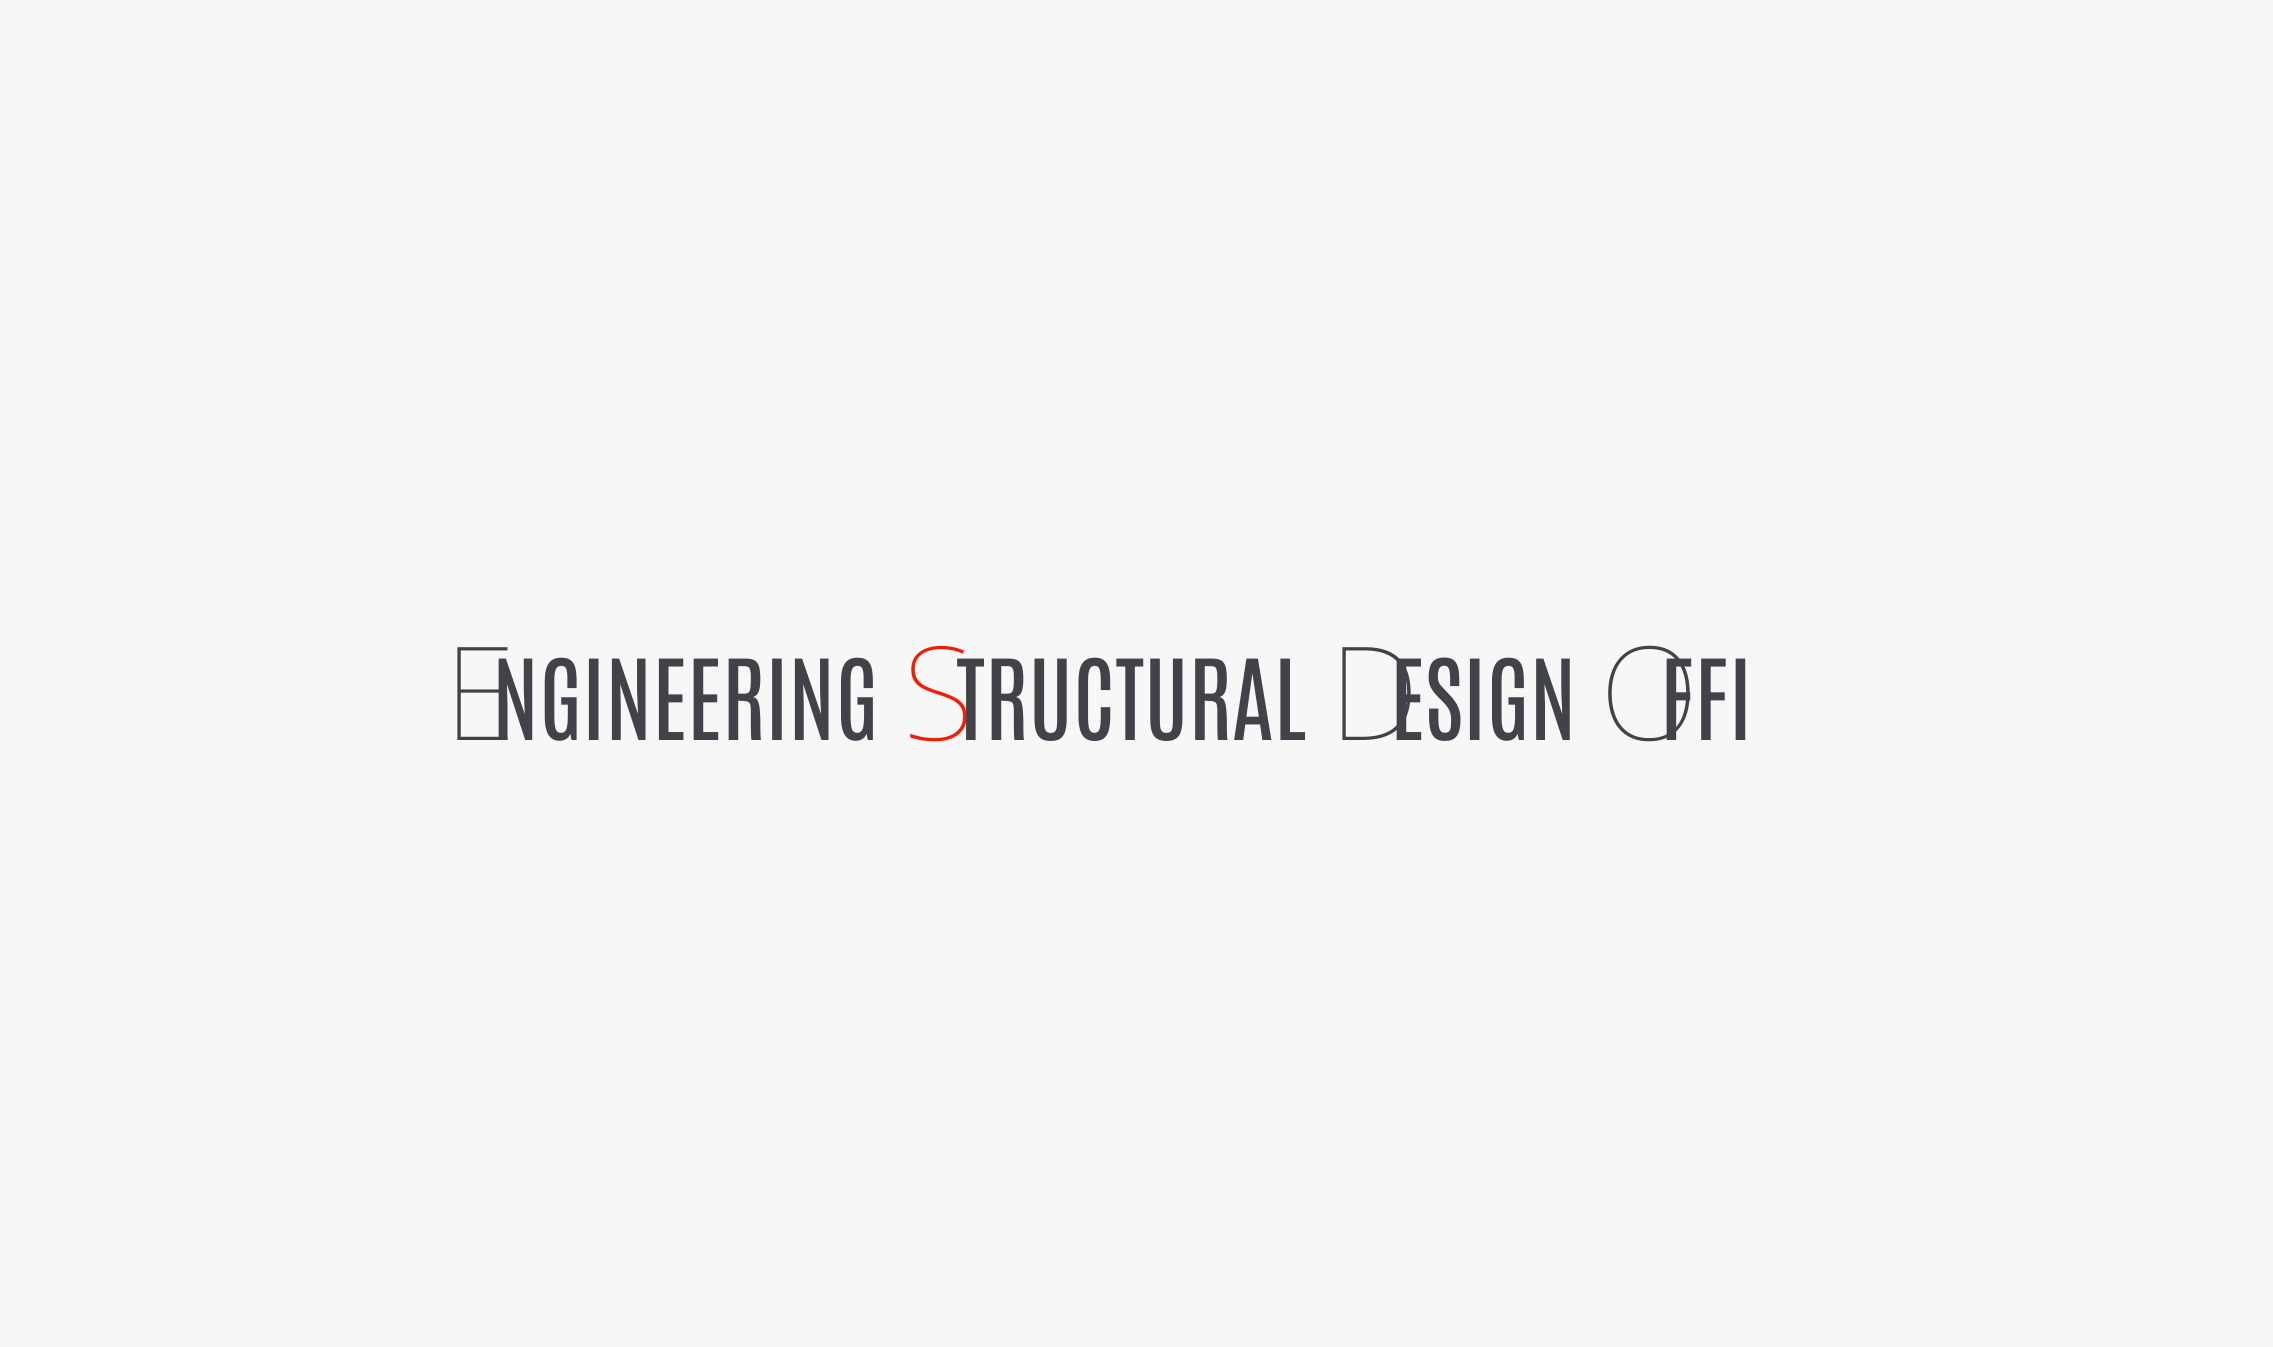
import math
import cairo


def draw(ctx):
	ctx.set_source_rgb(0.965, 0.965, 0.965)
	ctx.paint()
	ctx.select_font_face('Noto Sans Thin')
	ctx.set_font_size(130)
	ctx.set_source_rgb(0.259, 0.259, 0.286)
	ctx.move_to(444, 740)
	ctx.show_text('E')
	ctx.select_font_face('Antonio')
	ctx.set_font_size(94.75)
	ctx.move_to(492, 740)
	ctx.show_text('NGINEERING')
	ctx.select_font_face('Noto Sans Thin')
	ctx.set_font_size(130)
	ctx.set_source_rgb(0.953, 0.114, 0.027)
	ctx.move_to(903, 740)
	ctx.show_text('S')
	ctx.select_font_face('Antonio')
	ctx.set_font_size(94.75)
	ctx.set_source_rgb(0.259, 0.259, 0.286)
	ctx.move_to(956, 740)
	ctx.show_text('TRUCTURAL')
	ctx.select_font_face('Noto Sans Thin')
	ctx.set_font_size(130)
	ctx.move_to(1329, 740)
	ctx.show_text('D')
	ctx.select_font_face('Antonio')
	ctx.set_font_size(94.75)
	ctx.move_to(1390, 740)
	ctx.show_text('ESIGN')
	ctx.select_font_face('Noto Sans Thin')
	ctx.set_font_size(130)
	ctx.move_to(1600, 740)
	ctx.show_text('O')
	ctx.select_font_face('Antonio')
	ctx.set_font_size(94.75)
	ctx.move_to(1660, 740)
	ctx.show_text('FFI')


surface = cairo.ImageSurface(cairo.FORMAT_RGB24, 2273, 1347)
ctx = cairo.Context(surface)
options = cairo.FontOptions()
options.set_hint_metrics(cairo.HINT_METRICS_OFF)
options.set_hint_style(cairo.HINT_STYLE_NONE)
ctx.set_font_options(options)
ctx.set_miter_limit(4)
draw(ctx)
surface.write_to_png('image.png')
